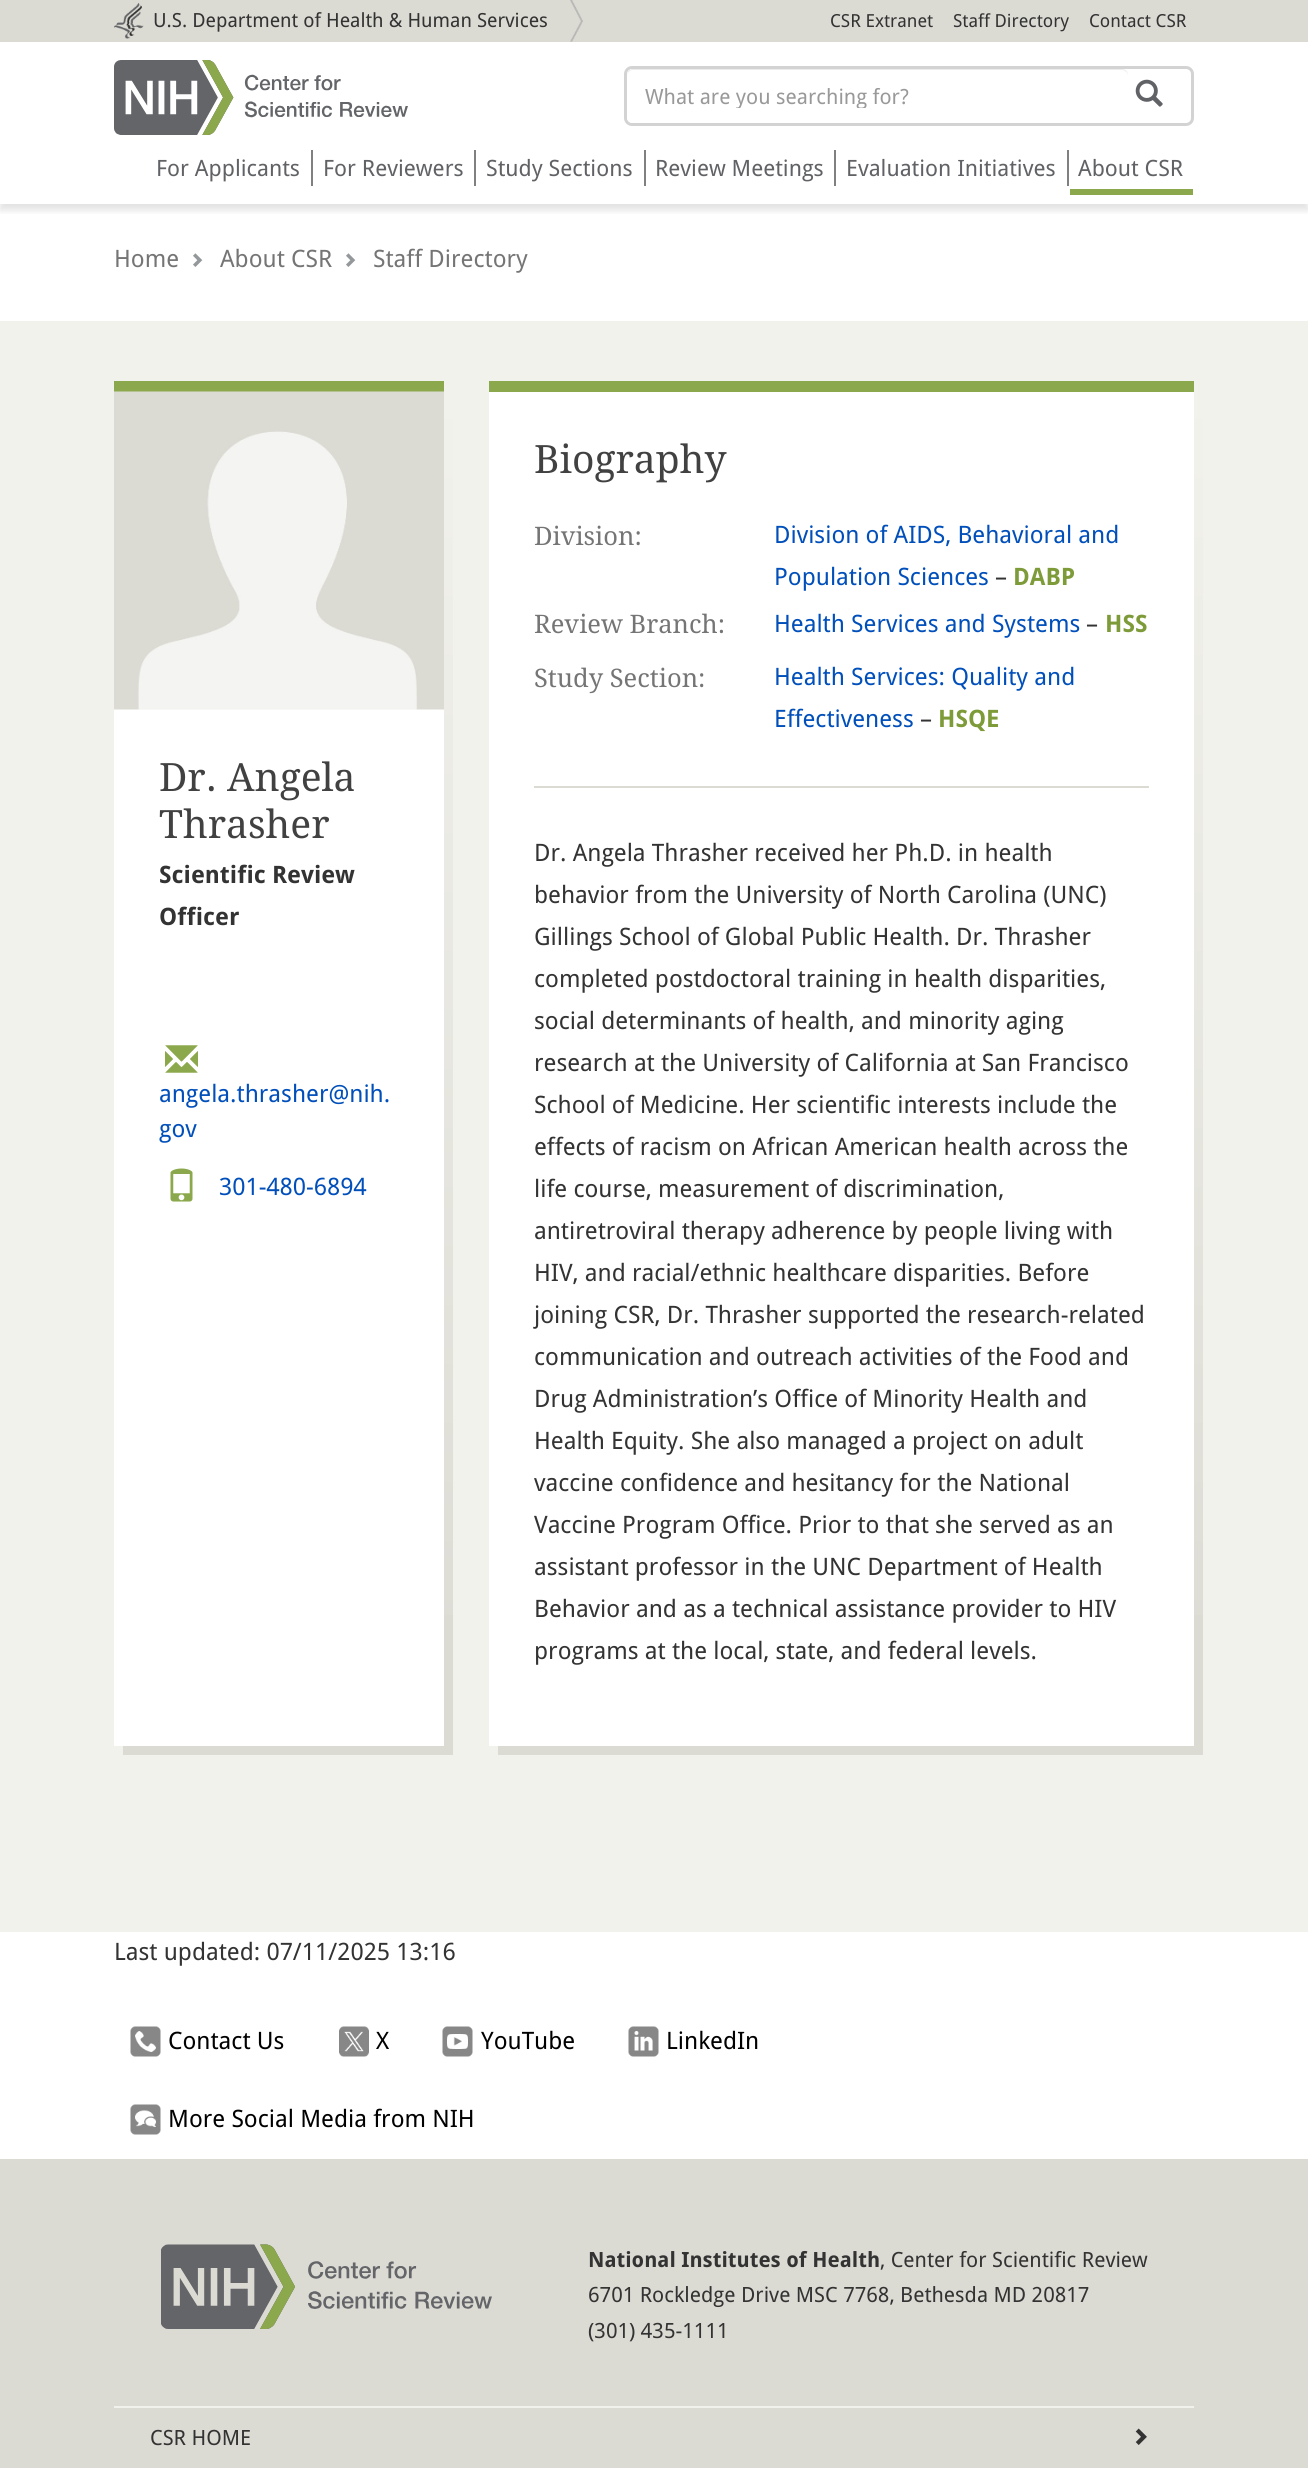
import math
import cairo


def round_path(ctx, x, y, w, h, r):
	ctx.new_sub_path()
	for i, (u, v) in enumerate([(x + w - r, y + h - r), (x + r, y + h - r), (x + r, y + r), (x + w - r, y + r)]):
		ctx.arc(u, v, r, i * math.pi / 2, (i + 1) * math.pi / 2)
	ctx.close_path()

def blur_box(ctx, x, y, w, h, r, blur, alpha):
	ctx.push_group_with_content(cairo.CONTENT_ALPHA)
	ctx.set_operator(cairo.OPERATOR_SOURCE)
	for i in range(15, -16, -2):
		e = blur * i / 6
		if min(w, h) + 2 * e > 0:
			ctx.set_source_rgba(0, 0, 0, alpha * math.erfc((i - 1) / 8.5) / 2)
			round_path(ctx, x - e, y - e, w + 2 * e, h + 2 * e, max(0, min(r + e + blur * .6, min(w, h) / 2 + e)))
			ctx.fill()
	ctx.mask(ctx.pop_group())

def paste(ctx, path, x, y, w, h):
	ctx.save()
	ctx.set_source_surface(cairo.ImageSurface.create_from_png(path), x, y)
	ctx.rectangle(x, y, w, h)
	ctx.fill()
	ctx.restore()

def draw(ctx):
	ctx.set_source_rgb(1, 1, 1)
	ctx.paint()
	ctx.set_source_rgb(0.859, 0.855, 0.827)
	ctx.rectangle(0, 0, 1308, 42)
	ctx.fill()
	paste(ctx, 'media/1.png', 114, 3, 30, 36)
	ctx.select_font_face('Droid Sans')
	ctx.set_font_size(19.5)
	ctx.set_source_rgb(0.2, 0.2, 0.2)
	ctx.move_to(153, 27)
	ctx.show_text('U.S. Department of Health & Human Services')
	paste(ctx, 'media/2.png', 570, 0, 13, 42)
	ctx.set_font_size(18)
	for x, y, s in [
		(830, 27, 'CSR Extranet'),
		(953, 27, 'Staff Directory'),
		(1089, 27, 'Contact CSR'),
	]:
		ctx.move_to(x, y)
		ctx.show_text(s)
	ctx.save()
	ctx.rectangle(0, 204, 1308, 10)
	ctx.clip()
	ctx.set_source_rgb(0, 0, 0)
	blur_box(ctx, 0, 48, 1308, 162, 0, 4, 0.12)
	ctx.restore()
	paste(ctx, 'media/3.png', 114, 60, 294, 75)
	round_path(ctx, 625.5, 67.5, 567, 57, 6.5)
	ctx.set_source_rgb(0.827, 0.827, 0.827)
	ctx.set_line_width(3)
	ctx.stroke()
	ctx.set_source_rgb(1, 1, 1)
	round_path(ctx, 627, 69, 501, 54, 6)
	ctx.fill()
	ctx.set_source_rgb(0.925, 0.925, 0.925)
	ctx.new_path()
	ctx.move_to(633, 70)
	ctx.line_to(1122, 70)
	ctx.curve_to(1125, 70, 1128, 73, 1128, 76)
	ctx.curve_to(1128, 72, 1126, 69, 1122, 69)
	ctx.line_to(633, 69)
	ctx.curve_to(629, 69, 627, 72, 627, 76)
	ctx.curve_to(627, 73, 630, 70, 633, 70)
	ctx.close_path()
	ctx.fill()
	ctx.save()
	ctx.rectangle(645, 84, 465, 24)
	ctx.clip()
	ctx.set_font_size(21)
	ctx.set_source_rgb(0.6, 0.6, 0.6)
	ctx.move_to(645, 104)
	ctx.show_text('What are you searching for?')
	ctx.restore()
	paste(ctx, 'media/4.png', 1135, 79, 28, 28)
	ctx.set_source_rgb(0.502, 0.502, 0.502)
	ctx.rectangle(311, 150, 2, 36)
	ctx.fill()
	ctx.set_font_size(22.5)
	ctx.set_source_rgb(0.38, 0.384, 0.396)
	ctx.move_to(156, 176)
	ctx.show_text('For Applicants')
	ctx.set_source_rgb(0.502, 0.502, 0.502)
	ctx.rectangle(474, 150, 2, 36)
	ctx.fill()
	ctx.set_source_rgb(0.38, 0.384, 0.396)
	ctx.move_to(323, 176)
	ctx.show_text('For Reviewers')
	ctx.set_source_rgb(0.502, 0.502, 0.502)
	ctx.rectangle(644, 150, 2, 36)
	ctx.fill()
	ctx.set_source_rgb(0.38, 0.384, 0.396)
	ctx.move_to(486, 176)
	ctx.show_text('Study Sections')
	ctx.set_source_rgb(0.502, 0.502, 0.502)
	ctx.rectangle(834, 150, 2, 36)
	ctx.fill()
	ctx.set_source_rgb(0.38, 0.384, 0.396)
	ctx.move_to(655, 176)
	ctx.show_text('Review Meetings')
	ctx.set_source_rgb(0.502, 0.502, 0.502)
	ctx.rectangle(1067, 150, 2, 36)
	ctx.fill()
	ctx.set_source_rgb(0.38, 0.384, 0.396)
	ctx.move_to(846, 176)
	ctx.show_text('Evaluation Initiatives')
	ctx.move_to(1078, 176)
	ctx.show_text('About CSR')
	ctx.set_source_rgb(0.545, 0.659, 0.298)
	ctx.rectangle(1070, 189, 123, 6)
	ctx.fill()
	ctx.set_font_size(24)
	ctx.set_source_rgb(0.459, 0.459, 0.459)
	ctx.move_to(114, 267)
	ctx.show_text('Home')
	paste(ctx, 'media/5.png', 193, 253, 10, 14)
	ctx.move_to(220, 267)
	ctx.show_text('About CSR')
	paste(ctx, 'media/5.png', 346, 253, 10, 14)
	ctx.move_to(373, 267)
	ctx.show_text('Staff Directory')
	ctx.set_source_rgb(0.949, 0.949, 0.929)
	ctx.rectangle(0, 321, 1308, 1611)
	ctx.fill()
	ctx.set_source_rgb(0.859, 0.855, 0.827)
	ctx.new_path()
	ctx.move_to(123, 1746)
	ctx.line_to(123, 1755)
	ctx.line_to(453, 1755)
	ctx.line_to(453, 390)
	ctx.line_to(444, 390)
	ctx.line_to(444, 1746)
	ctx.close_path()
	ctx.fill()
	ctx.set_source_rgb(1, 1, 1)
	ctx.rectangle(114, 709, 330, 1037)
	ctx.fill()
	ctx.set_source_rgb(0.545, 0.659, 0.298)
	ctx.rectangle(114, 381, 330, 11)
	ctx.fill()
	paste(ctx, 'media/6.png', 114, 391, 330, 319)
	gradient = cairo.LinearGradient(448, 390, 449, 1745)
	gradient.add_color_stop_rgba(0, 0.949, 0.949, 0.929, 1)
	gradient.add_color_stop_rgba(1, 0.859, 0.855, 0.827, 1)
	ctx.set_source(gradient)
	ctx.rectangle(444, 390, 9, 1225)
	ctx.fill()
	ctx.select_font_face('Droid Serif')
	ctx.set_font_size(39)
	ctx.set_source_rgb(0.255, 0.255, 0.255)
	ctx.move_to(159, 791)
	ctx.show_text('Dr. Angela')
	ctx.move_to(159, 838)
	ctx.show_text('Thrasher')
	ctx.select_font_face('Droid Sans', cairo.FONT_SLANT_NORMAL, cairo.FONT_WEIGHT_BOLD)
	ctx.set_font_size(24)
	ctx.set_source_rgb(0.2, 0.2, 0.2)
	ctx.move_to(159, 883)
	ctx.show_text('Scientific Review')
	ctx.move_to(159, 925)
	ctx.show_text('Officer')
	paste(ctx, 'media/7.png', 165, 1045, 33, 28)
	ctx.select_font_face('Droid Sans')
	ctx.set_source_rgb(0, 0.31, 0.729)
	ctx.move_to(159, 1102)
	ctx.show_text('angela.thrasher@nih.')
	ctx.move_to(159, 1137)
	ctx.show_text('gov')
	paste(ctx, 'media/8.png', 170, 1168, 23, 34)
	ctx.move_to(219, 1195)
	ctx.show_text('301-480-6894')
	ctx.set_source_rgb(0.859, 0.855, 0.827)
	ctx.new_path()
	ctx.move_to(498, 1746)
	ctx.line_to(498, 1755)
	ctx.line_to(1203, 1755)
	ctx.line_to(1203, 390)
	ctx.line_to(1194, 390)
	ctx.line_to(1194, 1746)
	ctx.close_path()
	ctx.fill()
	ctx.set_source_rgb(1, 1, 1)
	ctx.rectangle(489, 392, 705, 1354)
	ctx.fill()
	ctx.set_source_rgb(0.545, 0.659, 0.298)
	ctx.rectangle(489, 381, 705, 11)
	ctx.fill()
	ctx.select_font_face('Droid Serif')
	ctx.set_font_size(39)
	ctx.set_source_rgb(0.255, 0.255, 0.255)
	ctx.move_to(534, 473)
	ctx.show_text('Biography')
	ctx.set_font_size(25.5)
	ctx.set_source_rgb(0.459, 0.459, 0.459)
	ctx.move_to(534, 545)
	ctx.show_text('Division:')
	ctx.select_font_face('Droid Sans')
	ctx.set_font_size(24)
	ctx.set_source_rgb(0, 0.31, 0.729)
	ctx.move_to(774, 543)
	ctx.show_text('Division of AIDS, Behavioral and')
	ctx.move_to(774, 585)
	ctx.show_text('Population Sciences')
	ctx.set_source_rgb(0.2, 0.2, 0.2)
	ctx.move_to(995, 585)
	ctx.show_text('–')
	ctx.select_font_face('Droid Sans', cairo.FONT_SLANT_NORMAL, cairo.FONT_WEIGHT_BOLD)
	ctx.set_source_rgb(0.49, 0.608, 0.22)
	ctx.move_to(1013, 585)
	ctx.show_text('DABP')
	ctx.select_font_face('Droid Serif')
	ctx.set_font_size(25.5)
	ctx.set_source_rgb(0.459, 0.459, 0.459)
	ctx.move_to(534, 633)
	ctx.show_text('Review Branch:')
	ctx.select_font_face('Droid Sans')
	ctx.set_font_size(24)
	ctx.set_source_rgb(0, 0.31, 0.729)
	ctx.move_to(774, 632)
	ctx.show_text('Health Services and Systems')
	ctx.set_source_rgb(0.2, 0.2, 0.2)
	ctx.move_to(1086, 632)
	ctx.show_text('–')
	ctx.select_font_face('Droid Sans', cairo.FONT_SLANT_NORMAL, cairo.FONT_WEIGHT_BOLD)
	ctx.set_source_rgb(0.49, 0.608, 0.22)
	ctx.move_to(1105, 632)
	ctx.show_text('HSS')
	ctx.select_font_face('Droid Serif')
	ctx.set_font_size(25.5)
	ctx.set_source_rgb(0.459, 0.459, 0.459)
	ctx.move_to(534, 687)
	ctx.show_text('Study Section:')
	ctx.select_font_face('Droid Sans')
	ctx.set_font_size(24)
	ctx.set_source_rgb(0, 0.31, 0.729)
	ctx.move_to(774, 685)
	ctx.show_text('Health Services: Quality and')
	ctx.move_to(774, 727)
	ctx.show_text('Effectiveness')
	ctx.set_source_rgb(0.2, 0.2, 0.2)
	ctx.move_to(920, 727)
	ctx.show_text('–')
	ctx.select_font_face('Droid Sans', cairo.FONT_SLANT_NORMAL, cairo.FONT_WEIGHT_BOLD)
	ctx.set_source_rgb(0.49, 0.608, 0.22)
	ctx.move_to(938, 727)
	ctx.show_text('HSQE')
	ctx.set_source_rgb(0.859, 0.855, 0.827)
	ctx.rectangle(534, 786, 615, 2)
	ctx.fill()
	ctx.select_font_face('Droid Sans')
	ctx.set_source_rgb(0.2, 0.2, 0.2)
	for x, y, s in [
		(534, 861, 'Dr. Angela Thrasher received her Ph.D. in health'),
		(534, 903, 'behavior from the University of North Carolina (UNC)'),
		(534, 945, 'Gillings School of Global Public Health. Dr. Thrasher'),
		(534, 987, 'completed postdoctoral training in health disparities,'),
		(534, 1029, 'social determinants of health, and minority aging'),
		(534, 1071, 'research at the University of California at San Francisco'),
		(534, 1113, 'School of Medicine. Her scientific interests include the'),
		(534, 1155, 'effects of racism on African American health across the'),
		(534, 1197, 'life course, measurement of discrimination,'),
		(534, 1239, 'antiretroviral therapy adherence by people living with'),
		(534, 1281, 'HIV, and racial/ethnic healthcare disparities. Before'),
		(534, 1323, 'joining CSR, Dr. Thrasher supported the research-related'),
		(534, 1365, 'communication and outreach activities of the Food and'),
		(534, 1407, 'Drug Administration’s Office of Minority Health and'),
		(534, 1449, 'Health Equity. She also managed a project on adult'),
		(534, 1491, 'vaccine confidence and hesitancy for the National'),
		(534, 1533, 'Vaccine Program Office. Prior to that she served as an'),
		(534, 1575, 'assistant professor in the UNC Department of Health'),
		(534, 1617, 'Behavior and as a technical assistance provider to HIV'),
		(534, 1659, 'programs at the local, state, and federal levels.'),
	]:
		ctx.move_to(x, y)
		ctx.show_text(s)
	gradient = cairo.LinearGradient(1199, 390, 1199, 1745)
	gradient.add_color_stop_rgba(0, 0.949, 0.949, 0.929, 1)
	gradient.add_color_stop_rgba(1, 0.859, 0.855, 0.827, 1)
	ctx.set_source(gradient)
	ctx.rectangle(1194, 390, 9, 1225)
	ctx.fill()
	ctx.set_source_rgb(0.2, 0.2, 0.2)
	ctx.move_to(114, 1960)
	ctx.show_text('Last updated: 07/11/2025 13:16')
	paste(ctx, 'media/9.png', 130, 2026, 31, 31)
	ctx.set_source_rgb(0, 0, 0)
	ctx.move_to(168, 2049)
	ctx.show_text('Contact Us')
	paste(ctx, 'media/10.png', 339, 2026, 30, 31)
	ctx.move_to(376, 2049)
	ctx.show_text('X')
	paste(ctx, 'media/11.png', 442, 2026, 31, 31)
	ctx.move_to(481, 2049)
	ctx.show_text('YouTube')
	paste(ctx, 'media/12.png', 628, 2026, 31, 31)
	ctx.move_to(666, 2049)
	ctx.show_text('LinkedIn')
	paste(ctx, 'media/13.png', 130, 2104, 31, 31)
	ctx.move_to(168, 2127)
	ctx.show_text('More Social Media from NIH')
	ctx.set_source_rgb(0.859, 0.855, 0.827)
	ctx.rectangle(0, 2159, 1308, 309)
	ctx.fill()
	paste(ctx, 'media/14.png', 161, 2244, 331, 85)
	ctx.select_font_face('Droid Sans', cairo.FONT_SLANT_NORMAL, cairo.FONT_WEIGHT_BOLD)
	ctx.set_font_size(21)
	ctx.set_source_rgb(0.2, 0.2, 0.2)
	ctx.move_to(588, 2267)
	ctx.show_text('National Institutes of Health')
	ctx.select_font_face('Droid Sans')
	for x, y, s in [
		(880, 2267, ', Center for Scientific Review'),
		(588, 2302, '6701 Rockledge Drive MSC 7768, Bethesda MD 20817'),
		(588, 2338, '(301) 435-1111'),
	]:
		ctx.move_to(x, y)
		ctx.show_text(s)
	ctx.set_source_rgb(0.949, 0.949, 0.929)
	ctx.rectangle(114, 2406, 1080, 2)
	ctx.fill()
	ctx.set_source_rgb(0.2, 0.2, 0.2)
	ctx.move_to(150, 2445)
	ctx.show_text('CSR HOME')
	paste(ctx, 'media/15.png', 1135, 2428, 12, 17)


surface = cairo.ImageSurface(cairo.FORMAT_RGB24, 1308, 2468)
ctx = cairo.Context(surface)
options = cairo.FontOptions()
options.set_hint_metrics(cairo.HINT_METRICS_OFF)
options.set_hint_style(cairo.HINT_STYLE_NONE)
ctx.set_font_options(options)
ctx.set_miter_limit(4)
draw(ctx)
surface.write_to_png('image.png')
